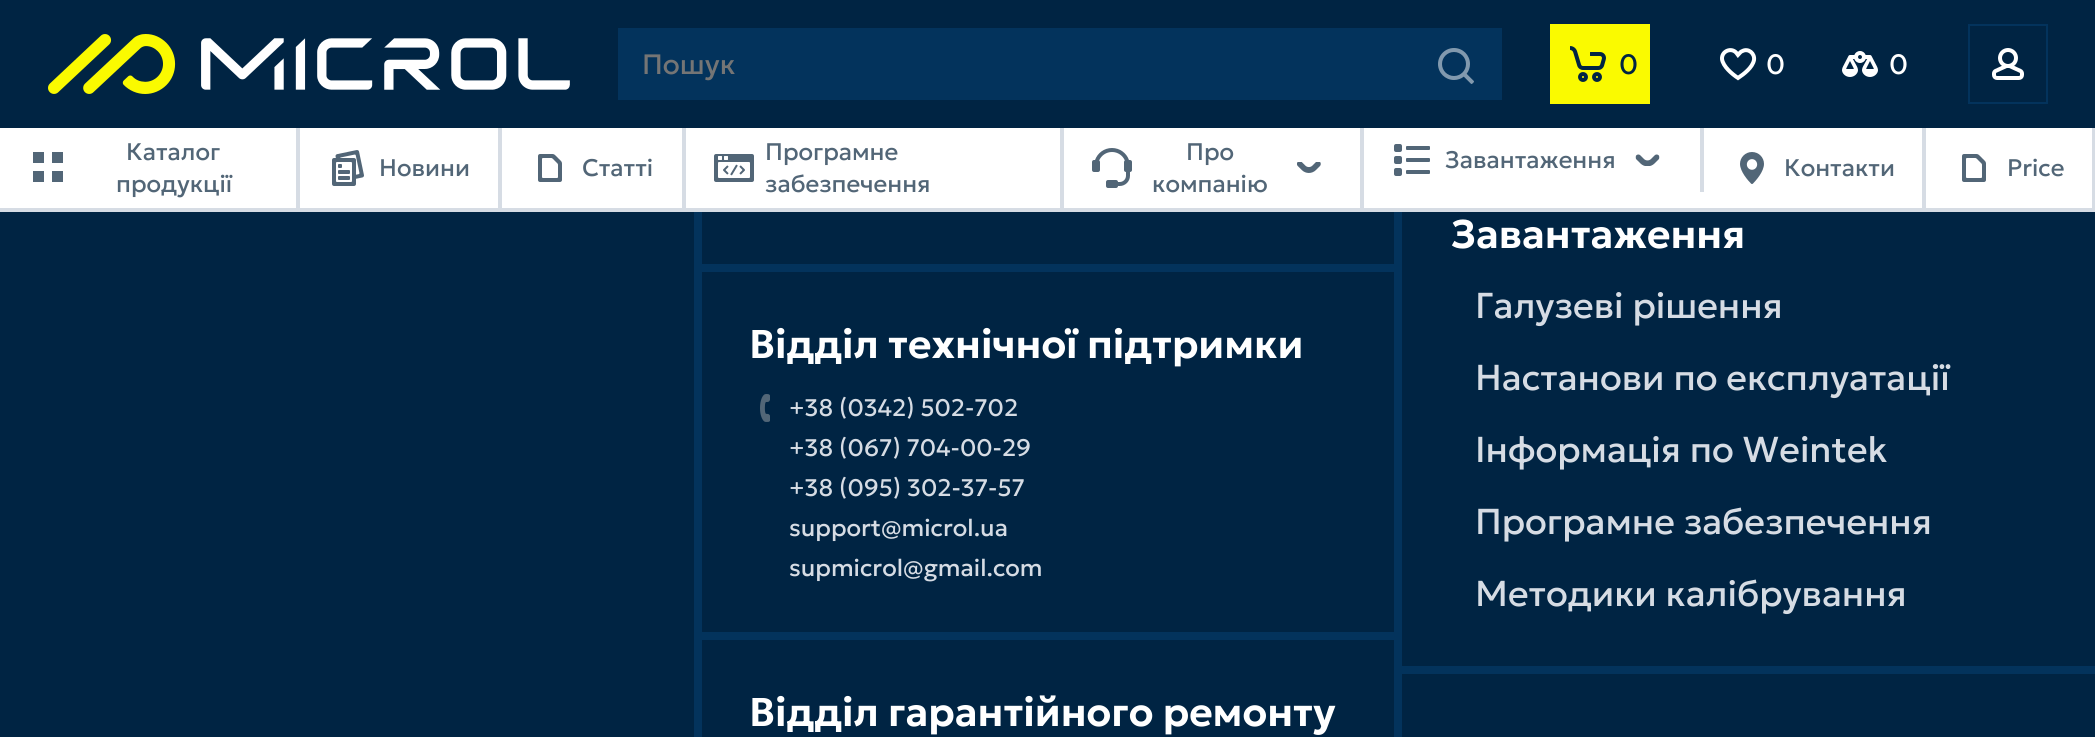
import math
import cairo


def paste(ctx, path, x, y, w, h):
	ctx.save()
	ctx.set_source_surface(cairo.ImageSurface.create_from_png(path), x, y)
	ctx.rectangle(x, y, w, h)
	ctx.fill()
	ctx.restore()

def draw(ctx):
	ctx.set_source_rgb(0.012, 0.2, 0.361)
	ctx.paint()
	ctx.set_source_rgb(1, 1, 1)
	ctx.rectangle(0, 128, 2092, 80)
	ctx.fill()
	ctx.set_source_rgb(0, 0.141, 0.263)
	ctx.rectangle(0, 0, 2095, 128)
	ctx.fill()
	paste(ctx, 'media/1.png', 48, 34, 128, 60)
	paste(ctx, 'media/2.png', 201, 38, 369, 52)
	ctx.set_source_rgb(0.012, 0.2, 0.361)
	ctx.rectangle(618, 28, 884, 72)
	ctx.fill()
	ctx.select_font_face('Geologica')
	ctx.set_font_size(28)
	ctx.set_source_rgb(0.459, 0.459, 0.459)
	ctx.move_to(642, 74)
	ctx.show_text('Пошук')
	paste(ctx, 'media/3.png', 1438, 48, 36, 36)
	ctx.set_source_rgb(0.98, 0.98, 0)
	ctx.rectangle(1550, 24, 100, 80)
	ctx.fill()
	paste(ctx, 'media/4.png', 1570, 46, 36, 36)
	ctx.set_source_rgb(0, 0.141, 0.263)
	ctx.move_to(1619, 74)
	ctx.show_text('0')
	ctx.new_path()
	ctx.move_to(1736.5, 53)
	ctx.line_to(1738, 55)
	ctx.curve_to(1739.5, 53.5, 1740.5, 51.5, 1742.5, 51)
	ctx.curve_to(1748.5, 48, 1755, 53.5, 1754, 60)
	ctx.curve_to(1752.5, 67.5, 1744, 74, 1738, 78)
	ctx.curve_to(1732, 74, 1723, 66.5, 1722, 59)
	ctx.curve_to(1721.5, 51, 1731.5, 47, 1736.5, 53)
	ctx.close_path()
	ctx.set_source_rgb(1, 1, 1)
	ctx.set_line_width(4)
	ctx.stroke()
	ctx.move_to(1766, 74)
	ctx.show_text('0')
	paste(ctx, 'media/5.png', 1842, 51, 36, 26)
	ctx.move_to(1889, 74)
	ctx.show_text('0')
	paste(ctx, 'media/6.png', 1992, 48, 32, 32)
	ctx.rectangle(1969, 25, 78, 78)
	ctx.set_source_rgb(0.012, 0.2, 0.361)
	ctx.set_line_width(2)
	ctx.stroke()
	ctx.set_source_rgb(0.839, 0.863, 0.894)
	ctx.rectangle(0, 208, 2095, 4)
	ctx.rectangle(296, 128, 4, 80)
	ctx.fill()
	ctx.set_source_rgb(0.322, 0.4, 0.467)
	ctx.rectangle(33, 152, 11, 11)
	ctx.rectangle(33, 171, 11, 11)
	ctx.rectangle(52, 152, 11, 11)
	ctx.rectangle(52, 171, 11, 11)
	ctx.fill()
	ctx.set_font_size(24)
	ctx.move_to(126, 160)
	ctx.show_text('Каталог')
	ctx.move_to(116, 192)
	ctx.show_text('продукції')
	ctx.set_source_rgb(0.839, 0.863, 0.894)
	ctx.rectangle(498, 128, 4, 80)
	ctx.fill()
	paste(ctx, 'media/7.png', 332, 150, 32, 36)
	ctx.set_source_rgb(0.322, 0.4, 0.467)
	ctx.move_to(379, 176)
	ctx.show_text('Новини')
	ctx.set_source_rgb(0.839, 0.863, 0.894)
	ctx.rectangle(682, 128, 4, 80)
	ctx.fill()
	paste(ctx, 'media/8.png', 538, 154, 24, 28)
	ctx.set_source_rgb(0.322, 0.4, 0.467)
	ctx.move_to(582, 176)
	ctx.show_text('Статті')
	ctx.set_source_rgb(0.839, 0.863, 0.894)
	ctx.rectangle(1060, 128, 4, 80)
	ctx.fill()
	paste(ctx, 'media/9.png', 714, 154, 40, 28)
	ctx.set_source_rgb(0.322, 0.4, 0.467)
	ctx.move_to(765, 160)
	ctx.show_text('Програмне')
	ctx.move_to(765, 192)
	ctx.show_text('забезпечення')
	ctx.set_source_rgb(0.839, 0.863, 0.894)
	ctx.rectangle(1360, 128, 4, 80)
	ctx.fill()
	paste(ctx, 'media/10.png', 1092, 148, 40, 40)
	ctx.set_source_rgb(0.322, 0.4, 0.467)
	ctx.move_to(1186, 160)
	ctx.show_text('Про')
	paste(ctx, 'media/11.png', 1297, 162, 24, 11)
	ctx.move_to(1152, 192)
	ctx.show_text('компанію')
	ctx.set_source_rgb(0.839, 0.863, 0.894)
	ctx.rectangle(1700, 128, 4, 64)
	ctx.fill()
	paste(ctx, 'media/12.png', 1394, 144, 36, 32)
	ctx.set_source_rgb(0.322, 0.4, 0.467)
	ctx.move_to(1445, 168)
	ctx.show_text('Завантаження')
	paste(ctx, 'media/13.png', 1635, 154, 25, 12)
	ctx.set_source_rgb(0.839, 0.863, 0.894)
	ctx.rectangle(1922, 128, 4, 80)
	ctx.fill()
	paste(ctx, 'media/14.png', 1740, 152, 24, 32)
	ctx.set_source_rgb(0.322, 0.4, 0.467)
	ctx.move_to(1784, 176)
	ctx.show_text('Контакти')
	ctx.set_source_rgb(0.839, 0.863, 0.894)
	ctx.rectangle(2092, 128, 3, 80)
	ctx.fill()
	paste(ctx, 'media/8.png', 1962, 154, 24, 28)
	ctx.set_source_rgb(0.322, 0.4, 0.467)
	ctx.move_to(2007, 176)
	ctx.show_text('Price')
	ctx.set_source_rgb(0, 0.141, 0.263)
	ctx.rectangle(0, 212, 694, 525)
	ctx.rectangle(702, 212, 692, 52)
	ctx.rectangle(702, 272, 692, 360)
	ctx.fill()
	ctx.select_font_face('Geologica SemiBold')
	ctx.set_font_size(40)
	ctx.set_source_rgb(1, 1, 1)
	ctx.move_to(749, 358)
	ctx.show_text('Відділ технічної підтримки')
	paste(ctx, 'media/15.png', 760, 394, 10, 28)
	ctx.select_font_face('Geologica')
	ctx.set_font_size(24)
	ctx.set_source_rgb(0.839, 0.863, 0.894)
	for x, y, s in [
		(789, 416, '+38 (0342) 502-702'),
		(789, 456, '+38 (067) 704-00-29'),
		(789, 496, '+38 (095) 302-37-57'),
		(789, 536, 'support@microl.ua'),
		(789, 576, 'supmicrol@gmail.com'),
	]:
		ctx.move_to(x, y)
		ctx.show_text(s)
	ctx.set_source_rgb(0, 0.141, 0.263)
	ctx.rectangle(702, 640, 692, 97)
	ctx.fill()
	ctx.select_font_face('Geologica SemiBold')
	ctx.set_font_size(40)
	ctx.set_source_rgb(1, 1, 1)
	ctx.move_to(749, 726)
	ctx.show_text('Відділ гарантійного ремонту')
	ctx.set_source_rgb(0, 0.141, 0.263)
	ctx.rectangle(1402, 212, 693, 454)
	ctx.fill()
	ctx.set_source_rgb(1, 1, 1)
	ctx.move_to(1451, 248)
	ctx.show_text('Завантаження')
	ctx.select_font_face('Geologica')
	ctx.set_font_size(36)
	ctx.set_source_rgb(0.839, 0.863, 0.894)
	for x, y, s in [
		(1475, 318, 'Галузеві рішення'),
		(1475, 390, 'Настанови по експлуатації'),
		(1475, 462, 'Інформація по Weintek'),
		(1475, 534, 'Програмне забезпечення'),
		(1475, 606, 'Методики калібрування'),
	]:
		ctx.move_to(x, y)
		ctx.show_text(s)
	ctx.set_source_rgb(0, 0.141, 0.263)
	ctx.rectangle(1402, 674, 693, 63)
	ctx.fill()


surface = cairo.ImageSurface(cairo.FORMAT_RGB24, 2095, 737)
ctx = cairo.Context(surface)
options = cairo.FontOptions()
options.set_hint_metrics(cairo.HINT_METRICS_OFF)
options.set_hint_style(cairo.HINT_STYLE_NONE)
ctx.set_font_options(options)
ctx.set_miter_limit(4)
draw(ctx)
surface.write_to_png('image.png')
